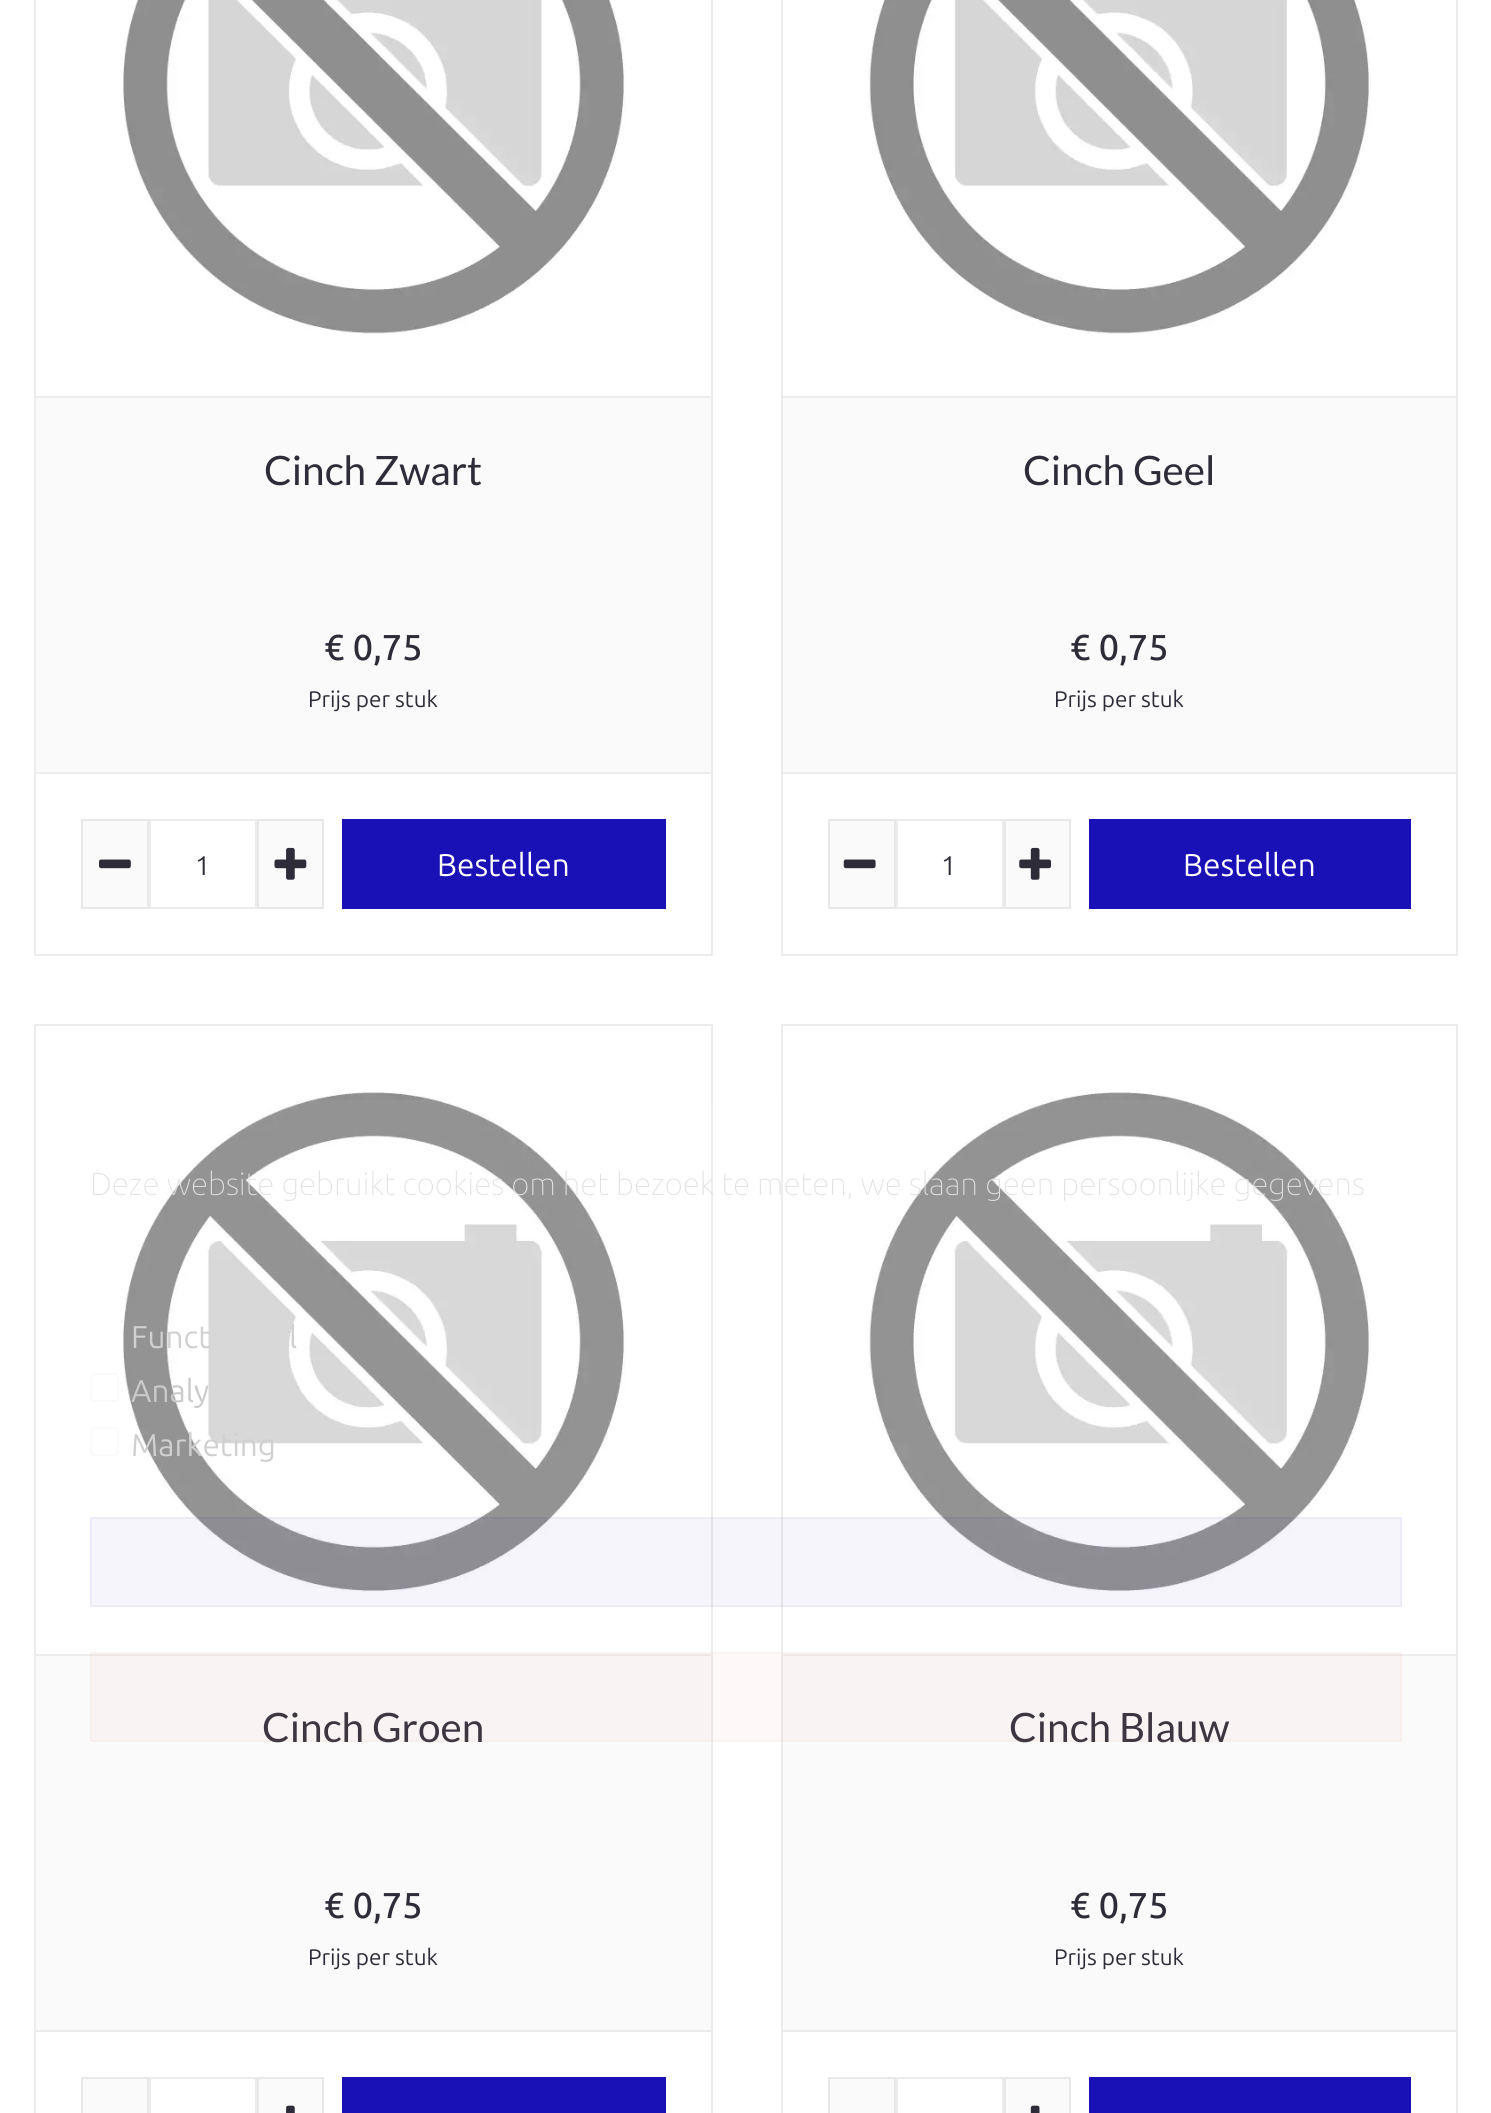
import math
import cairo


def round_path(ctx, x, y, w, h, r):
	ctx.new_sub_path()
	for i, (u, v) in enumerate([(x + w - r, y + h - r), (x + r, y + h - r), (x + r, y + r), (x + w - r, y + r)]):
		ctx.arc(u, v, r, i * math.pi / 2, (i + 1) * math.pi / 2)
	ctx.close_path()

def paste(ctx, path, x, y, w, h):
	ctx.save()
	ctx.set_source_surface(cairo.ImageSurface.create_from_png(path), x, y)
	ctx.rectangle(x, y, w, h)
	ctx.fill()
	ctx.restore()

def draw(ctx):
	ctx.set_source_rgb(1, 1, 1)
	ctx.paint()
	ctx.rectangle(35, -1, 677, 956)
	ctx.set_source_rgb(0.922, 0.922, 0.922)
	ctx.stroke()
	ctx.rectangle(36, 396, 675, 2)
	ctx.fill()
	paste(ctx, 'media/1.png', 121, 0, 505, 334)
	ctx.set_source_rgb(0.98, 0.98, 0.98)
	ctx.rectangle(36, 398, 675, 374)
	ctx.fill()
	ctx.set_source_rgb(0.922, 0.922, 0.922)
	ctx.rectangle(36, 772, 675, 2)
	ctx.fill()
	ctx.select_font_face('Lato')
	ctx.set_font_size(40.5)
	ctx.set_source_rgb(0.18, 0.173, 0.224)
	ctx.move_to(264, 485)
	ctx.show_text('Cinch Zwart')
	ctx.select_font_face('Ubuntu Medium')
	ctx.set_font_size(36)
	ctx.move_to(324, 660)
	ctx.show_text('€ 0,75')
	ctx.select_font_face('Ubuntu')
	ctx.set_font_size(22.5)
	ctx.move_to(308, 707)
	ctx.show_text('Prijs per stuk')
	ctx.set_source_rgb(0.98, 0.98, 0.98)
	ctx.rectangle(82, 820, 66, 88)
	ctx.fill_preserve()
	ctx.set_source_rgb(0.91, 0.91, 0.91)
	ctx.stroke()
	paste(ctx, 'media/2.png', 99, 859, 32, 10)
	ctx.rectangle(150, 820, 106, 88)
	ctx.set_source_rgb(0.922, 0.922, 0.922)
	ctx.stroke()
	ctx.set_font_size(27)
	ctx.set_source_rgb(0.18, 0.173, 0.224)
	ctx.move_to(195, 875)
	ctx.show_text('1')
	ctx.set_source_rgb(0.98, 0.98, 0.98)
	ctx.rectangle(258, 820, 65, 88)
	ctx.fill_preserve()
	ctx.set_source_rgb(0.91, 0.91, 0.91)
	ctx.stroke()
	paste(ctx, 'media/3.png', 274, 847, 33, 33)
	ctx.set_source_rgb(0.098, 0.063, 0.71)
	ctx.rectangle(342, 819, 324, 90)
	ctx.fill()
	ctx.set_font_size(31.5)
	ctx.set_source_rgb(1, 1, 1)
	ctx.move_to(437, 876)
	ctx.show_text('Bestellen')
	ctx.rectangle(782, -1, 675, 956)
	ctx.set_source_rgb(0.922, 0.922, 0.922)
	ctx.stroke()
	ctx.rectangle(783, 396, 673, 2)
	ctx.fill()
	paste(ctx, 'media/4.png', 868, 0, 503, 334)
	ctx.set_source_rgb(0.98, 0.98, 0.98)
	ctx.rectangle(783, 398, 673, 374)
	ctx.fill()
	ctx.set_source_rgb(0.922, 0.922, 0.922)
	ctx.rectangle(783, 772, 673, 2)
	ctx.fill()
	ctx.select_font_face('Lato')
	ctx.set_font_size(40.5)
	ctx.set_source_rgb(0.18, 0.173, 0.224)
	ctx.move_to(1023, 485)
	ctx.show_text('Cinch Geel')
	ctx.select_font_face('Ubuntu Medium')
	ctx.set_font_size(36)
	ctx.move_to(1070, 660)
	ctx.show_text('€ 0,75')
	ctx.select_font_face('Ubuntu')
	ctx.set_font_size(22.5)
	ctx.move_to(1054, 707)
	ctx.show_text('Prijs per stuk')
	ctx.set_source_rgb(0.98, 0.98, 0.98)
	ctx.rectangle(829, 820, 66, 88)
	ctx.fill_preserve()
	ctx.set_source_rgb(0.91, 0.91, 0.91)
	ctx.stroke()
	paste(ctx, 'media/5.png', 843, 859, 33, 10)
	ctx.rectangle(897, 820, 106, 88)
	ctx.set_source_rgb(0.922, 0.922, 0.922)
	ctx.stroke()
	ctx.set_font_size(27)
	ctx.set_source_rgb(0.18, 0.173, 0.224)
	ctx.move_to(941, 875)
	ctx.show_text('1')
	ctx.set_source_rgb(0.98, 0.98, 0.98)
	ctx.rectangle(1005, 820, 65, 88)
	ctx.fill_preserve()
	ctx.set_source_rgb(0.91, 0.91, 0.91)
	ctx.stroke()
	paste(ctx, 'media/6.png', 1019, 847, 33, 33)
	ctx.set_source_rgb(0.098, 0.063, 0.71)
	ctx.rectangle(1089, 819, 322, 90)
	ctx.fill()
	ctx.set_font_size(31.5)
	ctx.set_source_rgb(1, 1, 1)
	ctx.move_to(1183, 876)
	ctx.show_text('Bestellen')
	ctx.rectangle(35, 1025, 677, 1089)
	ctx.set_source_rgb(0.922, 0.922, 0.922)
	ctx.stroke()
	ctx.rectangle(36, 1654, 675, 2)
	ctx.fill()
	paste(ctx, 'media/7.png', 121, 1092, 505, 500)
	ctx.set_source_rgb(0.98, 0.98, 0.98)
	ctx.rectangle(36, 1656, 675, 374)
	ctx.fill()
	ctx.set_source_rgb(0.922, 0.922, 0.922)
	ctx.rectangle(36, 2030, 675, 2)
	ctx.fill()
	ctx.select_font_face('Lato')
	ctx.set_font_size(40.5)
	ctx.set_source_rgb(0.18, 0.173, 0.224)
	ctx.move_to(262, 1742)
	ctx.show_text('Cinch Groen')
	ctx.select_font_face('Ubuntu Medium')
	ctx.set_font_size(36)
	ctx.move_to(324, 1918)
	ctx.show_text('€ 0,75')
	ctx.select_font_face('Ubuntu')
	ctx.set_font_size(22.5)
	ctx.move_to(308, 1965)
	ctx.show_text('Prijs per stuk')
	ctx.set_source_rgb(0.98, 0.98, 0.98)
	ctx.rectangle(82, 2078, 66, 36)
	ctx.fill_preserve()
	ctx.set_source_rgb(0.91, 0.91, 0.91)
	ctx.stroke()
	ctx.rectangle(150, 2078, 106, 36)
	ctx.set_source_rgb(0.922, 0.922, 0.922)
	ctx.stroke()
	ctx.set_source_rgb(0.98, 0.98, 0.98)
	ctx.rectangle(258, 2078, 65, 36)
	ctx.fill_preserve()
	ctx.set_source_rgb(0.91, 0.91, 0.91)
	ctx.stroke()
	paste(ctx, 'media/8.png', 286, 2105, 9, 8)
	ctx.set_source_rgb(0.098, 0.063, 0.71)
	ctx.rectangle(342, 2077, 324, 36)
	ctx.fill()
	ctx.rectangle(782, 1025, 675, 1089)
	ctx.set_source_rgb(0.922, 0.922, 0.922)
	ctx.stroke()
	ctx.rectangle(783, 1654, 673, 2)
	ctx.fill()
	paste(ctx, 'media/9.png', 868, 1092, 503, 500)
	ctx.set_source_rgb(0.98, 0.98, 0.98)
	ctx.rectangle(783, 1656, 673, 374)
	ctx.fill()
	ctx.set_source_rgb(0.922, 0.922, 0.922)
	ctx.rectangle(783, 2030, 673, 2)
	ctx.fill()
	ctx.select_font_face('Lato')
	ctx.set_font_size(40.5)
	ctx.set_source_rgb(0.18, 0.173, 0.224)
	ctx.move_to(1009, 1742)
	ctx.show_text('Cinch Blauw')
	ctx.select_font_face('Ubuntu Medium')
	ctx.set_font_size(36)
	ctx.move_to(1070, 1918)
	ctx.show_text('€ 0,75')
	ctx.select_font_face('Ubuntu')
	ctx.set_font_size(22.5)
	ctx.move_to(1054, 1965)
	ctx.show_text('Prijs per stuk')
	ctx.set_source_rgb(0.98, 0.98, 0.98)
	ctx.rectangle(829, 2078, 66, 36)
	ctx.fill_preserve()
	ctx.set_source_rgb(0.91, 0.91, 0.91)
	ctx.stroke()
	ctx.rectangle(897, 2078, 106, 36)
	ctx.set_source_rgb(0.922, 0.922, 0.922)
	ctx.stroke()
	ctx.set_source_rgb(0.98, 0.98, 0.98)
	ctx.rectangle(1005, 2078, 65, 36)
	ctx.fill_preserve()
	ctx.set_source_rgb(0.91, 0.91, 0.91)
	ctx.stroke()
	paste(ctx, 'media/10.png', 1030, 2105, 10, 8)
	ctx.set_source_rgb(0.098, 0.063, 0.71)
	ctx.rectangle(1089, 2077, 322, 36)
	ctx.fill()
	ctx.set_source_rgba(1, 1, 1, 0.04)
	ctx.rectangle(124, 1100, 1245, 643)
	ctx.fill()
	ctx.select_font_face('Ubuntu Thin')
	ctx.set_font_size(31.5)
	ctx.set_source_rgb(0.882, 0.882, 0.882)
	ctx.move_to(90, 1195)
	ctx.show_text('Deze website gebruikt cookies om het bezoek te meten, we slaan geen persoonlijke gegevens')
	ctx.select_font_face('Ubuntu')
	ctx.set_source_rgb(0.816, 0.816, 0.816)
	ctx.move_to(131, 1348)
	ctx.show_text('Funct')
	ctx.move_to(289, 1348)
	ctx.show_text('l')
	round_path(ctx, 91, 1374, 27, 27, 4)
	ctx.set_source_rgb(0.98, 0.98, 0.98)
	ctx.stroke()
	ctx.set_source_rgb(0.792, 0.792, 0.792)
	ctx.move_to(131, 1402)
	ctx.show_text('Analy')
	round_path(ctx, 91, 1428, 27, 27, 4)
	ctx.set_source_rgb(0.98, 0.98, 0.98)
	ctx.stroke()
	ctx.set_source_rgb(0.816, 0.816, 0.816)
	ctx.move_to(131, 1456)
	ctx.show_text('Marketing')
	ctx.set_source_rgba(0.098, 0.063, 0.71, 0.04)
	ctx.rectangle(90, 1517, 1312, 90)
	ctx.fill()
	ctx.rectangle(91, 1518, 1310, 88)
	ctx.stroke()
	ctx.set_source_rgba(0.922, 0.396, 0.337, 0.04)
	ctx.rectangle(90, 1652, 1312, 90)
	ctx.fill()
	ctx.rectangle(91, 1653, 1310, 88)
	ctx.stroke()


surface = cairo.ImageSurface(cairo.FORMAT_RGB24, 1491, 2113)
ctx = cairo.Context(surface)
options = cairo.FontOptions()
options.set_hint_metrics(cairo.HINT_METRICS_OFF)
options.set_hint_style(cairo.HINT_STYLE_NONE)
ctx.set_font_options(options)
ctx.set_miter_limit(4)
draw(ctx)
surface.write_to_png('image.png')
